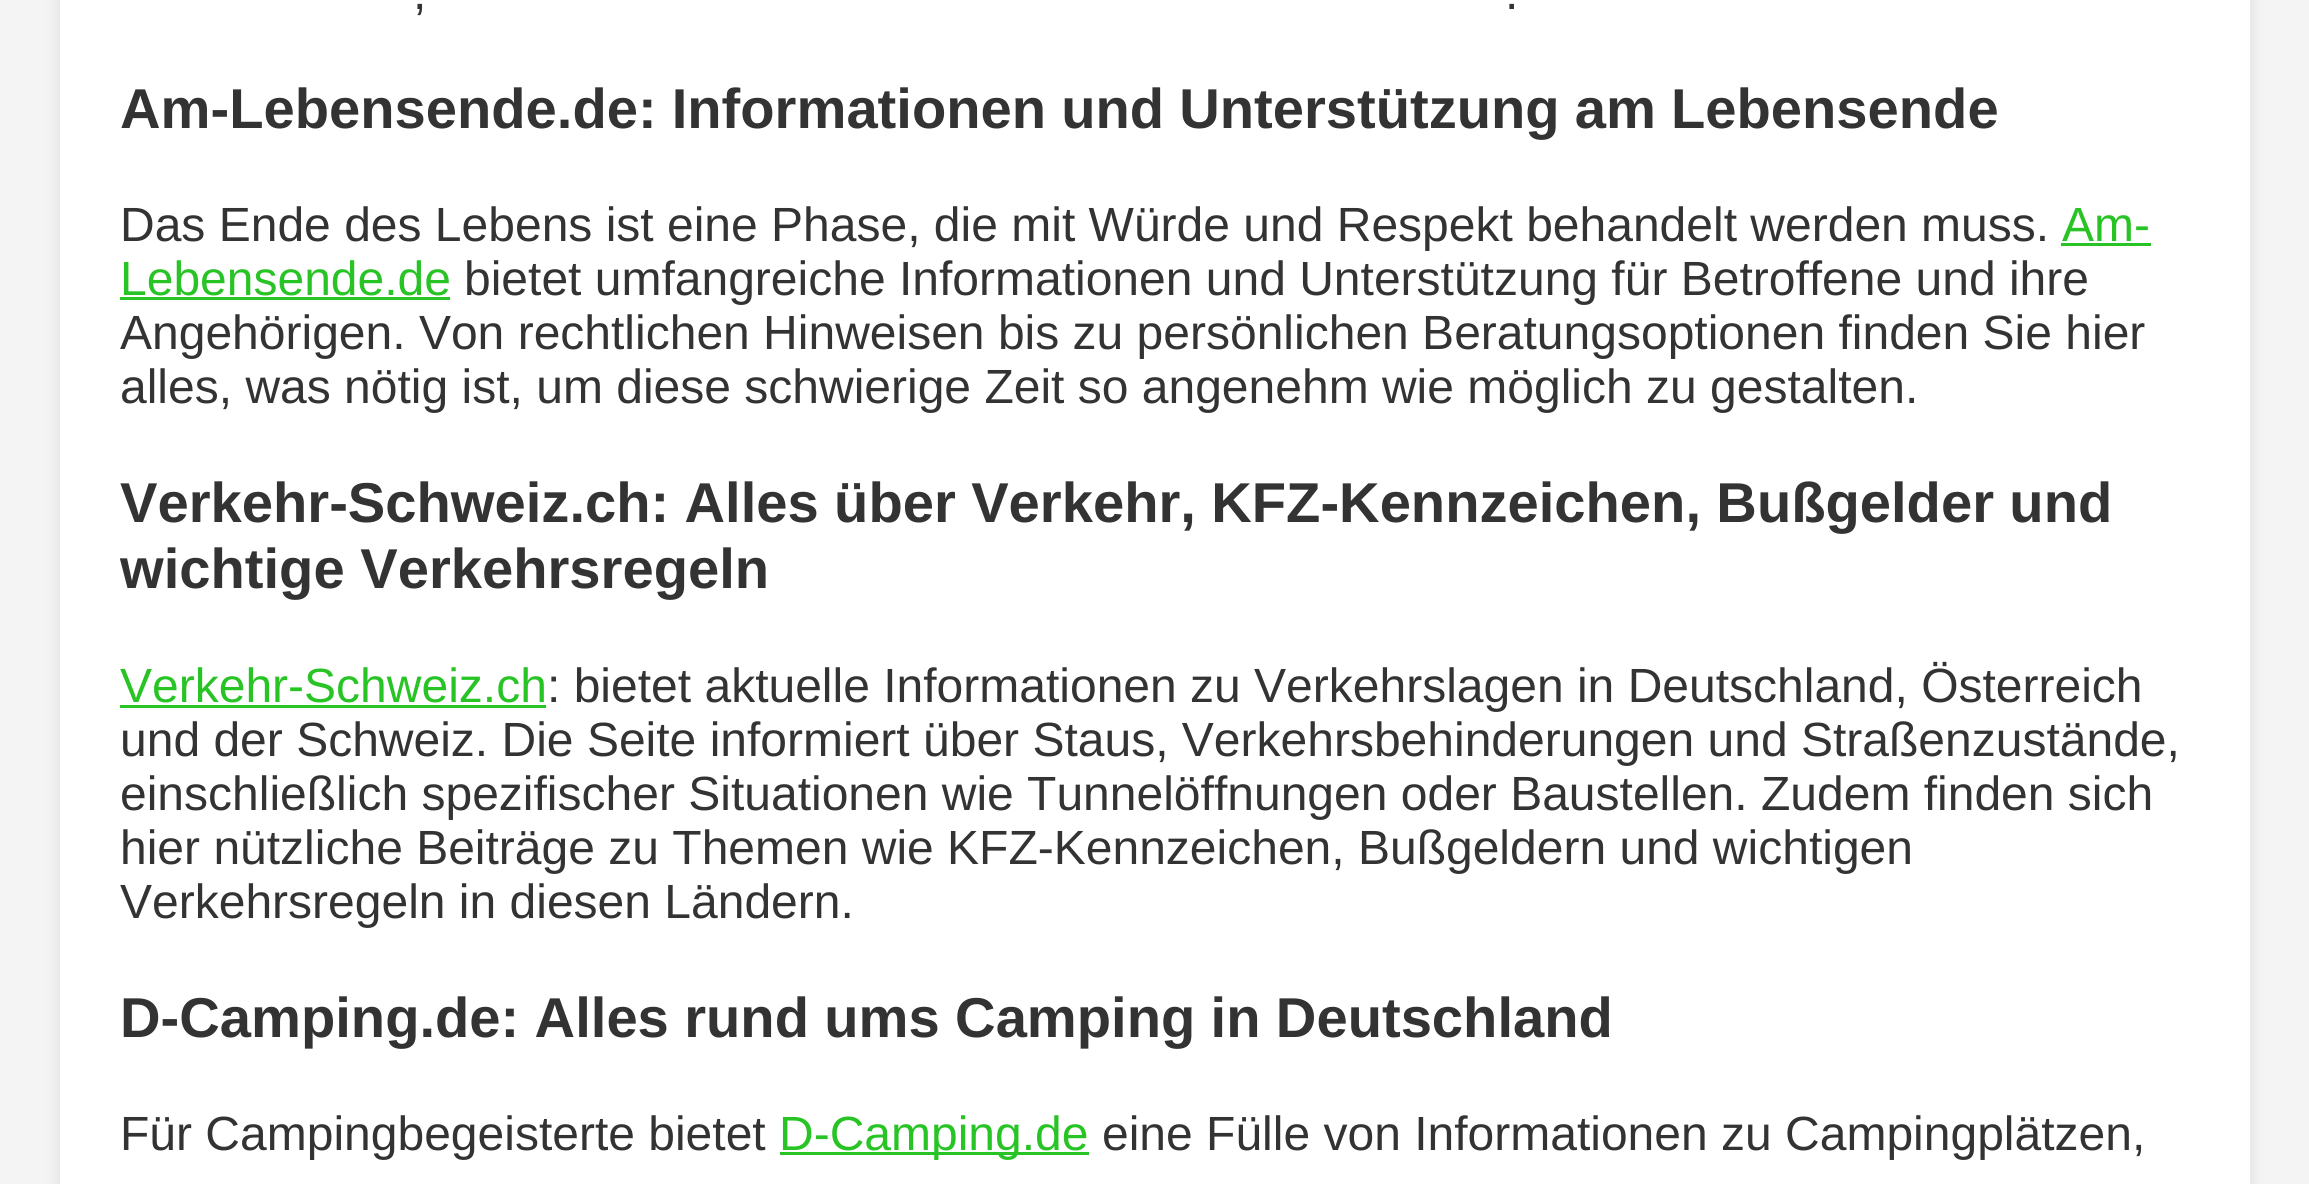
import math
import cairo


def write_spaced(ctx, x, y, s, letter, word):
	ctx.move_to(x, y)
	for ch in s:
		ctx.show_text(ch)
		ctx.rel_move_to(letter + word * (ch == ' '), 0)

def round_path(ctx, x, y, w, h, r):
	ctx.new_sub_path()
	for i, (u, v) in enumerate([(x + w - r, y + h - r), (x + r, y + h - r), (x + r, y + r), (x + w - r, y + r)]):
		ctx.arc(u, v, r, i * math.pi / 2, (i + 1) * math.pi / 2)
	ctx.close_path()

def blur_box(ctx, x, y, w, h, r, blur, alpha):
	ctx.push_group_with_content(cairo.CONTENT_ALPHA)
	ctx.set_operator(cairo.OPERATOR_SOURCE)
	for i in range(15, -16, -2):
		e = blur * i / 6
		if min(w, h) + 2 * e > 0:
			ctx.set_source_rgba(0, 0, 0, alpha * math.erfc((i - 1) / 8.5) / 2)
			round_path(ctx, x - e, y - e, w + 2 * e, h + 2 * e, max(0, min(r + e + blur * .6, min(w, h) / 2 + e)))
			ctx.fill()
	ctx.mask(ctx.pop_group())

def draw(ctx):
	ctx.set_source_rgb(0.957, 0.957, 0.957)
	ctx.paint()
	ctx.set_source_rgb(0, 0, 0)
	blur_box(ctx, 60, -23, 2190, 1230, 0, 7.5, 0.1)
	ctx.set_source_rgb(1, 1, 1)
	ctx.rectangle(60, 0, 2190, 1184)
	ctx.fill()
	ctx.select_font_face('Liberation Sans')
	ctx.set_font_size(48)
	ctx.set_source_rgb(0.2, 0.2, 0.2)
	ctx.move_to(413, 9)
	ctx.show_text(',')
	ctx.move_to(1505, 9)
	ctx.show_text('.')
	ctx.select_font_face('Liberation Sans', cairo.FONT_SLANT_NORMAL, cairo.FONT_WEIGHT_BOLD)
	ctx.set_font_size(56.15)
	write_spaced(ctx, 120, 128, 'Am-Lebensende.de: Informationen und Unterstützung am Lebensende', 0, -0.5)
	ctx.select_font_face('Liberation Sans')
	ctx.set_font_size(48)
	ctx.move_to(120, 241)
	ctx.show_text('Das Ende des Lebens ist eine Phase, die mit Würde und Respekt behandelt werden muss.')
	ctx.set_source_rgb(0.157, 0.765, 0.141)
	ctx.move_to(2062, 241)
	ctx.show_text('Am-')
	ctx.rectangle(2061, 243, 90, 3)
	ctx.fill()
	ctx.move_to(120, 295)
	ctx.show_text('Lebensende.de')
	ctx.rectangle(120, 297, 330, 3)
	ctx.fill()
	ctx.set_source_rgb(0.2, 0.2, 0.2)
	for x, y, s in [
		(464, 295, 'bietet umfangreiche Informationen und Unterstützung für Betroffene und ihre'),
		(120, 349, 'Angehörigen. Von rechtlichen Hinweisen bis zu persönlichen Beratungsoptionen finden Sie hier'),
		(120, 403, 'alles, was nötig ist, um diese schwierige Zeit so angenehm wie möglich zu gestalten.'),
	]:
		ctx.move_to(x, y)
		ctx.show_text(s)
	ctx.select_font_face('Liberation Sans', cairo.FONT_SLANT_NORMAL, cairo.FONT_WEIGHT_BOLD)
	ctx.set_font_size(56.15)
	write_spaced(ctx, 120, 522, 'Verkehr-Schweiz.ch: Alles über Verkehr, KFZ-Kennzeichen, Bußgelder und', 0, -0.25)
	ctx.move_to(120, 588)
	ctx.show_text('wichtige Verkehrsregeln')
	ctx.select_font_face('Liberation Sans')
	ctx.set_font_size(48)
	ctx.set_source_rgb(0.157, 0.765, 0.141)
	ctx.move_to(120, 702)
	ctx.show_text('Verkehr-Schweiz.ch')
	ctx.rectangle(120, 705, 426, 3)
	ctx.fill()
	ctx.set_source_rgb(0.2, 0.2, 0.2)
	for x, y, s in [
		(547, 702, ': bietet aktuelle Informationen zu Verkehrslagen in Deutschland, Österreich'),
		(120, 756, 'und der Schweiz. Die Seite informiert über Staus, Verkehrsbehinderungen und Straßenzustände,'),
		(120, 810, 'einschließlich spezifischer Situationen wie Tunnelöffnungen oder Baustellen. Zudem finden sich'),
		(120, 864, 'hier nützliche Beiträge zu Themen wie KFZ-Kennzeichen, Bußgeldern und wichtigen'),
		(120, 918, 'Verkehrsregeln in diesen Ländern.'),
	]:
		ctx.move_to(x, y)
		ctx.show_text(s)
	ctx.select_font_face('Liberation Sans', cairo.FONT_SLANT_NORMAL, cairo.FONT_WEIGHT_BOLD)
	ctx.set_font_size(56.15)
	write_spaced(ctx, 120, 1037, 'D-Camping.de: Alles rund ums Camping in Deutschland', 0, -0.25)
	ctx.select_font_face('Liberation Sans')
	ctx.set_font_size(48)
	ctx.move_to(120, 1150)
	ctx.show_text('Für Campingbegeisterte bietet')
	ctx.set_source_rgb(0.157, 0.765, 0.141)
	ctx.rectangle(780, 1152, 309, 3)
	ctx.fill()
	ctx.move_to(779, 1150)
	ctx.show_text('D-Camping.de')
	ctx.set_source_rgb(0.2, 0.2, 0.2)
	ctx.move_to(1102, 1150)
	ctx.show_text('eine Fülle von Informationen zu Campingplätzen,')


surface = cairo.ImageSurface(cairo.FORMAT_RGB24, 2309, 1184)
ctx = cairo.Context(surface)
options = cairo.FontOptions()
options.set_hint_metrics(cairo.HINT_METRICS_OFF)
options.set_hint_style(cairo.HINT_STYLE_NONE)
ctx.set_font_options(options)
ctx.set_miter_limit(4)
draw(ctx)
surface.write_to_png('image.png')
